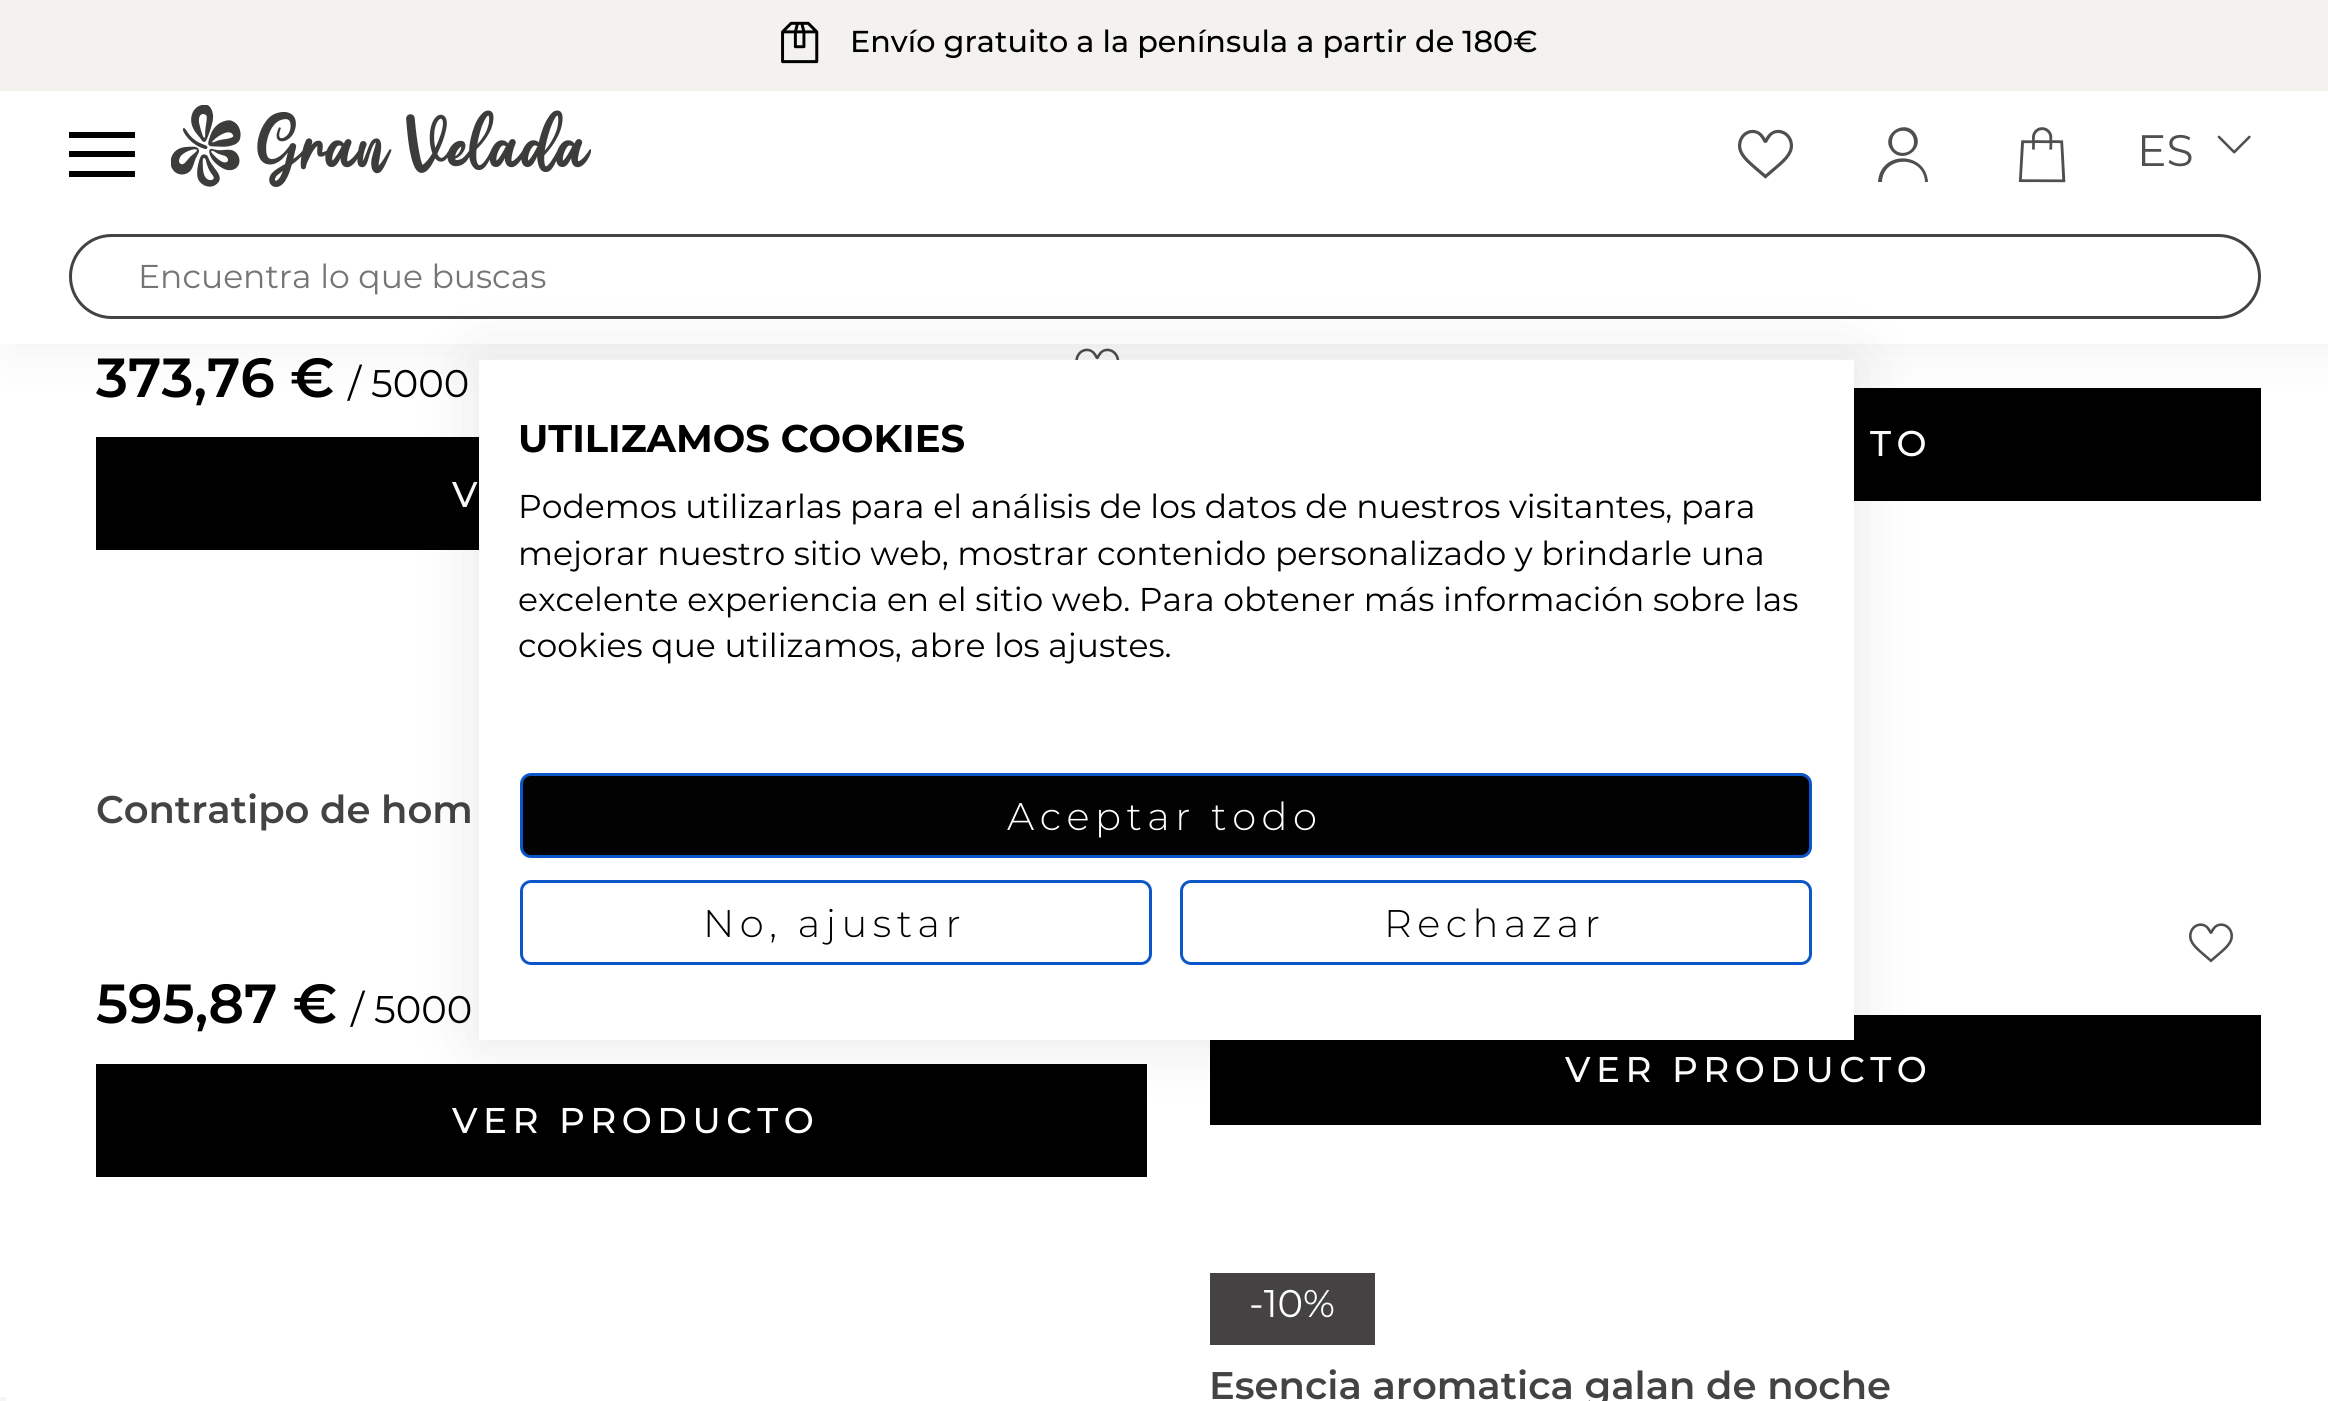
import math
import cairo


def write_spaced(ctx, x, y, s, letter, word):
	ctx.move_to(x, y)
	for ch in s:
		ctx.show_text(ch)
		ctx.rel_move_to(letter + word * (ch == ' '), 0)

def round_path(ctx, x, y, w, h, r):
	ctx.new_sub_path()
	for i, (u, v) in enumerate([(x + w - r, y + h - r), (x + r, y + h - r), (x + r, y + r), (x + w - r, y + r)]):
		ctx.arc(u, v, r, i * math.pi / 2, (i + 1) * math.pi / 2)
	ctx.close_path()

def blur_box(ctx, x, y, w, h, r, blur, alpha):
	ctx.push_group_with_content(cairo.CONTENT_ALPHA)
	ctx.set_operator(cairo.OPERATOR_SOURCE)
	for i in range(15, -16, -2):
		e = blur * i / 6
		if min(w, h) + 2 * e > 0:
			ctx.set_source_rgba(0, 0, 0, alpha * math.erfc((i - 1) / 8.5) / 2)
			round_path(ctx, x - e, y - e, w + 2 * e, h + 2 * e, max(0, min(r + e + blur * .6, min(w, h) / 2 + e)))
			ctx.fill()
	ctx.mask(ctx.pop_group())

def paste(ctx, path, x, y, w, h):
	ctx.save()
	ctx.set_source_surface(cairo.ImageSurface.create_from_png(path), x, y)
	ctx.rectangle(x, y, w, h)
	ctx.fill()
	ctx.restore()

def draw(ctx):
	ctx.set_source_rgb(1, 1, 1)
	ctx.paint()
	paste(ctx, 'media/6.png', 1075, 348, 45, 12)
	ctx.set_source_rgb(0, 0, 0)
	ctx.rectangle(1854, 388, 407, 113)
	ctx.fill()
	ctx.set_source_rgb(0, 0, 0)
	blur_box(ctx, 8, 8, 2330, 344, 0, 27.5, 0.05)
	ctx.set_source_rgb(1, 1, 1)
	ctx.rectangle(0, 91, 2328, 253)
	ctx.fill()
	ctx.set_source_rgb(0.953, 0.949, 0.933)
	ctx.rectangle(0, 0, 2328, 91)
	ctx.fill()
	paste(ctx, 'media/1.png', 781, 21, 38, 43)
	ctx.select_font_face('Montserrat Medium')
	ctx.set_font_size(30.25)
	ctx.set_source_rgb(0, 0, 0)
	ctx.move_to(850, 52)
	ctx.show_text('Envío gratuito a la península a partir de 180€')
	paste(ctx, 'media/2.png', 1738, 129, 55, 50)
	ctx.set_source_rgb(0.314, 0.31, 0.31)
	ctx.new_path()
	ctx.move_to(1928, 182)
	ctx.line_to(1925, 182)
	ctx.curve_to(1924, 155, 1883, 155, 1882, 182)
	ctx.line_to(1878, 182)
	ctx.curve_to(1880, 150, 1926, 151, 1928, 182)
	ctx.close_path()
	ctx.move_to(1891, 150)
	ctx.curve_to(1880, 135, 1904, 118, 1915, 133)
	ctx.curve_to(1926, 149, 1902, 165, 1891, 150)
	ctx.close_path()
	ctx.move_to(1892, 142)
	ctx.curve_to(1892, 157, 1914, 156, 1914, 142)
	ctx.curve_to(1914, 127, 1892, 127, 1892, 142)
	ctx.close_path()
	ctx.fill()
	paste(ctx, 'media/3.png', 2018, 127, 48, 56)
	ctx.select_font_face('Montserrat')
	ctx.set_font_size(44)
	ctx.move_to(2137, 166)
	ctx.show_text('ES')
	paste(ctx, 'media/4.png', 2217, 135, 34, 19)
	ctx.set_source_rgb(0, 0, 0)
	ctx.rectangle(69, 132, 66, 6)
	ctx.rectangle(69, 151, 66, 6)
	ctx.rectangle(69, 171, 66, 6)
	ctx.fill()
	paste(ctx, 'media/5.png', 171, 105, 420, 82)
	round_path(ctx, 70.5, 235.5, 2189, 82, 41)
	ctx.set_source_rgb(0.267, 0.259, 0.259)
	ctx.set_line_width(3)
	ctx.stroke()
	ctx.set_font_size(33)
	ctx.set_source_rgb(0.459, 0.459, 0.459)
	ctx.move_to(138, 288)
	ctx.show_text('Encuentra lo que buscas')
	ctx.select_font_face('Montserrat SemiBold')
	ctx.set_font_size(55)
	ctx.set_source_rgb(0, 0, 0)
	ctx.move_to(96, 397)
	ctx.show_text('373,76 €')
	ctx.select_font_face('Montserrat')
	ctx.set_font_size(38.5)
	ctx.move_to(348, 397)
	ctx.show_text('/ 5000')
	ctx.rectangle(96, 437, 383, 113)
	ctx.fill()
	ctx.select_font_face('Montserrat Medium')
	ctx.set_font_size(35.75)
	ctx.set_source_rgb(1, 1, 1)
	write_spaced(ctx, 452, 507, 'V', 5.5, 0)
	write_spaced(ctx, 1870, 456, 'TO', 5.5, 0)
	ctx.select_font_face('Montserrat SemiBold')
	ctx.set_font_size(38.5)
	ctx.set_source_rgb(0.267, 0.259, 0.259)
	ctx.move_to(96, 823)
	ctx.show_text('Contratipo de hom')
	ctx.set_font_size(55)
	ctx.set_source_rgb(0, 0, 0)
	ctx.move_to(96, 1023)
	ctx.show_text('595,87 €')
	ctx.select_font_face('Montserrat')
	ctx.set_font_size(38.5)
	ctx.move_to(351, 1023)
	ctx.show_text('/ 5000')
	ctx.rectangle(96, 1064, 1051, 113)
	ctx.fill()
	ctx.select_font_face('Montserrat Medium')
	ctx.set_font_size(35.75)
	ctx.set_source_rgb(1, 1, 1)
	write_spaced(ctx, 452, 1133, 'VER PRODUCTO', 5.5, 0)
	paste(ctx, 'media/7.png', 2189, 923, 44, 40)
	ctx.set_source_rgb(0, 0, 0)
	ctx.rectangle(1210, 1015, 1051, 110)
	ctx.fill()
	ctx.set_source_rgb(1, 1, 1)
	write_spaced(ctx, 1565, 1082, 'VER PRODUCTO', 5.5, 0)
	ctx.set_source_rgb(0.267, 0.259, 0.259)
	ctx.rectangle(1210, 1273, 165, 72)
	ctx.fill()
	ctx.select_font_face('Montserrat')
	ctx.set_font_size(38.5)
	ctx.set_source_rgb(1, 1, 1)
	ctx.move_to(1249, 1317)
	ctx.show_text('-10%')
	ctx.select_font_face('Montserrat SemiBold')
	ctx.set_source_rgb(0.267, 0.259, 0.259)
	ctx.move_to(1209, 1399)
	ctx.show_text('Esencia aromatica galan de noche')
	ctx.set_source_rgb(0, 0, 0)
	blur_box(ctx, 479, 360, 1375, 680, 0, 33, 0.1)
	ctx.set_source_rgb(1, 1, 1)
	ctx.rectangle(479, 360, 1375, 680)
	ctx.fill()
	ctx.select_font_face('Montserrat', cairo.FONT_SLANT_NORMAL, cairo.FONT_WEIGHT_BOLD)
	ctx.set_source_rgb(0, 0, 0)
	ctx.move_to(518, 452)
	ctx.show_text('UTILIZAMOS COOKIES')
	ctx.select_font_face('Montserrat')
	ctx.set_font_size(33)
	for x, y, s in [
		(518, 518, 'Podemos utilizarlas para el análisis de los datos de nuestros visitantes, para'),
		(518, 565, 'mejorar nuestro sitio web, mostrar contenido personalizado y brindarle una'),
		(518, 611, 'excelente experiencia en el sitio web. Para obtener más información sobre las'),
		(518, 657, 'cookies que utilizamos, abre los ajustes.'),
	]:
		ctx.move_to(x, y)
		ctx.show_text(s)
	ctx.set_source_rgb(0.008, 0.008, 0.008)
	round_path(ctx, 521.5, 774.5, 1289, 82, 9.5)
	ctx.fill_preserve()
	ctx.set_source_rgb(0.051, 0.337, 0.788)
	ctx.stroke()
	ctx.select_font_face('Montserrat Light')
	ctx.set_font_size(38.5)
	ctx.set_source_rgb(1, 1, 1)
	write_spaced(ctx, 1007, 830, 'Aceptar todo', 5.5, 0)
	round_path(ctx, 521.5, 881.5, 629, 82, 9.5)
	ctx.set_source_rgb(0.051, 0.337, 0.788)
	ctx.stroke()
	ctx.set_source_rgb(0, 0, 0)
	write_spaced(ctx, 703, 937, 'No, ajustar', 5.5, 0)
	round_path(ctx, 1181.5, 881.5, 629, 82, 9.5)
	ctx.set_source_rgb(0.051, 0.337, 0.788)
	ctx.stroke()
	ctx.set_source_rgb(0, 0, 0)
	write_spaced(ctx, 1384, 937, 'Rechazar', 5.5, 0)
	ctx.set_source_rgb(0.961, 0.961, 0.961)
	ctx.rectangle(0, 1397, 6, 4)
	ctx.fill()


surface = cairo.ImageSurface(cairo.FORMAT_RGB24, 2328, 1401)
ctx = cairo.Context(surface)
options = cairo.FontOptions()
options.set_hint_metrics(cairo.HINT_METRICS_OFF)
options.set_hint_style(cairo.HINT_STYLE_NONE)
ctx.set_font_options(options)
ctx.set_miter_limit(4)
draw(ctx)
surface.write_to_png('image.png')
